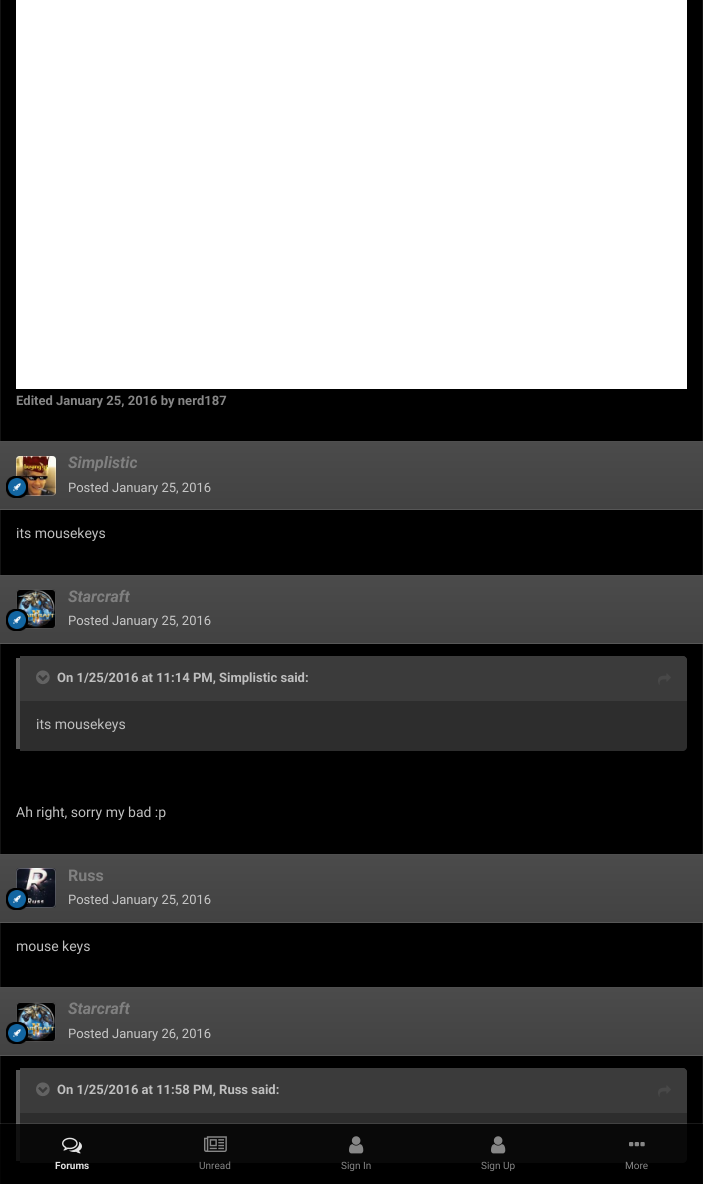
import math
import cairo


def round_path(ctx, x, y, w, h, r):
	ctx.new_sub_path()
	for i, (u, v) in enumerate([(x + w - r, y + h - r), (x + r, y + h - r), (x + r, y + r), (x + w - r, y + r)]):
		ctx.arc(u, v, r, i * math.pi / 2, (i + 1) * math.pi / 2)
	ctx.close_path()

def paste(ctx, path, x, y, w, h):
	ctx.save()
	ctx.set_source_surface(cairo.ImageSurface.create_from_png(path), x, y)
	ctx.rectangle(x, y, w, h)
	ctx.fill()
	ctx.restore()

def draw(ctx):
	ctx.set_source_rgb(0, 0, 0)
	ctx.paint()
	ctx.rectangle(0.5, -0.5, 702, 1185)
	ctx.set_source_rgb(0.078, 0.078, 0.078)
	ctx.set_line_width(1)
	ctx.stroke()
	ctx.set_source_rgb(1, 1, 1)
	ctx.rectangle(16, 0, 671, 389)
	ctx.fill()
	ctx.select_font_face('Roboto', cairo.FONT_SLANT_NORMAL, cairo.FONT_WEIGHT_BOLD)
	ctx.set_font_size(13)
	ctx.set_source_rgb(0.529, 0.529, 0.529)
	ctx.move_to(16, 405)
	ctx.show_text('Edited January 25, 2016 by nerd187')
	gradient = cairo.LinearGradient(352, 442, 352, 509)
	gradient.add_color_stop_rgba(0, 0.294, 0.294, 0.294, 1)
	gradient.add_color_stop_rgba(1, 0.259, 0.259, 0.259, 1)
	ctx.set_source(gradient)
	ctx.rectangle(0, 442, 703, 67)
	ctx.fill()
	ctx.set_source_rgb(0.31, 0.31, 0.31)
	ctx.rectangle(0, 441, 703, 1)
	ctx.fill()
	ctx.set_source_rgb(0.341, 0.341, 0.341)
	ctx.rectangle(0, 509, 703, 1)
	ctx.fill()
	paste(ctx, 'media/1.png', 16, 456, 40, 40)
	round_path(ctx, 16.5, 456.5, 39, 39, 3.5)
	ctx.set_source_rgba(1, 1, 1, 0.3)
	ctx.stroke()
	paste(ctx, 'media/2.png', 6, 476, 22, 22)
	ctx.select_font_face('Roboto', cairo.FONT_SLANT_ITALIC, cairo.FONT_WEIGHT_BOLD)
	ctx.set_font_size(16)
	ctx.set_source_rgb(0.502, 0.502, 0.502)
	ctx.move_to(68, 468)
	ctx.show_text('Simplistic')
	ctx.select_font_face('Roboto')
	ctx.set_font_size(13)
	ctx.set_source_rgb(0.78, 0.78, 0.78)
	ctx.move_to(68, 492)
	ctx.show_text('Posted January 25, 2016')
	ctx.set_font_size(14)
	ctx.set_source_rgb(0.749, 0.749, 0.749)
	ctx.move_to(16, 538)
	ctx.show_text('its mousekeys')
	gradient = cairo.LinearGradient(352, 576, 352, 643)
	gradient.add_color_stop_rgba(0, 0.294, 0.294, 0.294, 1)
	gradient.add_color_stop_rgba(1, 0.259, 0.259, 0.259, 1)
	ctx.set_source(gradient)
	ctx.rectangle(0, 576, 703, 67)
	ctx.fill()
	ctx.set_source_rgb(0.31, 0.31, 0.31)
	ctx.rectangle(0, 575, 703, 1)
	ctx.fill()
	ctx.set_source_rgb(0.341, 0.341, 0.341)
	ctx.rectangle(0, 643, 703, 1)
	ctx.fill()
	ctx.set_source_rgb(0, 0, 0)
	round_path(ctx, 16, 589, 40, 40, 4)
	ctx.fill()
	paste(ctx, 'media/3.png', 17, 589, 39, 40)
	round_path(ctx, 16.5, 589.5, 39, 39, 3.5)
	ctx.set_source_rgba(1, 1, 1, 0.3)
	ctx.stroke()
	paste(ctx, 'media/4.png', 6, 609, 22, 22)
	ctx.select_font_face('Roboto', cairo.FONT_SLANT_ITALIC, cairo.FONT_WEIGHT_BOLD)
	ctx.set_font_size(16)
	ctx.set_source_rgb(0.502, 0.502, 0.502)
	ctx.move_to(68, 602)
	ctx.show_text('Starcraft')
	ctx.select_font_face('Roboto')
	ctx.set_font_size(13)
	ctx.set_source_rgb(0.78, 0.78, 0.78)
	ctx.move_to(68, 625)
	ctx.show_text('Posted January 25, 2016')
	ctx.set_source_rgb(0.176, 0.176, 0.176)
	ctx.new_path()
	ctx.move_to(20, 656)
	ctx.line_to(683, 656)
	ctx.curve_to(685, 656, 687, 658, 687, 660)
	ctx.line_to(687, 747)
	ctx.curve_to(687, 749, 685, 751, 683, 751)
	ctx.line_to(20, 751)
	ctx.close_path()
	ctx.fill()
	ctx.set_source_rgb(0.329, 0.329, 0.329)
	ctx.rectangle(16, 658, 4, 91)
	ctx.fill()
	ctx.set_source_rgb(0.231, 0.231, 0.231)
	ctx.new_path()
	ctx.move_to(20, 656)
	ctx.line_to(683, 656)
	ctx.curve_to(685, 656, 687, 658, 687, 660)
	ctx.line_to(687, 701)
	ctx.line_to(20, 701)
	ctx.close_path()
	ctx.fill()
	paste(ctx, 'media/5.png', 36, 670, 14, 15)
	ctx.select_font_face('Roboto', cairo.FONT_SLANT_NORMAL, cairo.FONT_WEIGHT_BOLD)
	ctx.set_source_rgb(0.749, 0.749, 0.749)
	ctx.move_to(57, 682)
	ctx.show_text('On 1/25/2016 at 11:14 PM, Simplistic said:')
	paste(ctx, 'media/6.png', 658, 673, 13, 12)
	ctx.select_font_face('Roboto')
	ctx.set_font_size(14)
	ctx.move_to(36, 729)
	ctx.show_text('its mousekeys')
	ctx.move_to(16, 817)
	ctx.show_text('Ah right, sorry my bad :p')
	gradient = cairo.LinearGradient(352, 855, 352, 922)
	gradient.add_color_stop_rgba(0, 0.294, 0.294, 0.294, 1)
	gradient.add_color_stop_rgba(1, 0.259, 0.259, 0.259, 1)
	ctx.set_source(gradient)
	ctx.rectangle(0, 855, 703, 67)
	ctx.fill()
	ctx.set_source_rgb(0.31, 0.31, 0.31)
	ctx.rectangle(0, 854, 703, 1)
	ctx.fill()
	ctx.set_source_rgb(0.341, 0.341, 0.341)
	ctx.rectangle(0, 922, 703, 1)
	ctx.fill()
	paste(ctx, 'media/7.png', 16, 868, 40, 40)
	round_path(ctx, 16.5, 868.5, 39, 39, 3.5)
	ctx.set_source_rgba(1, 1, 1, 0.3)
	ctx.stroke()
	paste(ctx, 'media/8.png', 6, 888, 22, 22)
	ctx.select_font_face('Roboto', cairo.FONT_SLANT_NORMAL, cairo.FONT_WEIGHT_BOLD)
	ctx.set_font_size(16)
	ctx.set_source_rgb(0.502, 0.502, 0.502)
	ctx.move_to(68, 881)
	ctx.show_text('Russ')
	ctx.select_font_face('Roboto')
	ctx.set_font_size(13)
	ctx.set_source_rgb(0.78, 0.78, 0.78)
	ctx.move_to(68, 904)
	ctx.show_text('Posted January 25, 2016')
	ctx.set_font_size(14)
	ctx.set_source_rgb(0.749, 0.749, 0.749)
	ctx.move_to(16, 951)
	ctx.show_text('mouse keys')
	gradient = cairo.LinearGradient(352, 988, 352, 1055)
	gradient.add_color_stop_rgba(0, 0.294, 0.294, 0.294, 1)
	gradient.add_color_stop_rgba(1, 0.259, 0.259, 0.259, 1)
	ctx.set_source(gradient)
	ctx.rectangle(0, 988, 703, 67)
	ctx.fill()
	ctx.set_source_rgb(0.31, 0.31, 0.31)
	ctx.rectangle(0, 987, 703, 1)
	ctx.fill()
	ctx.set_source_rgb(0.341, 0.341, 0.341)
	ctx.rectangle(0, 1055, 703, 1)
	ctx.fill()
	ctx.set_source_rgb(0, 0, 0)
	round_path(ctx, 16, 1002, 40, 40, 4)
	ctx.fill()
	paste(ctx, 'media/3.png', 17, 1002, 39, 40)
	round_path(ctx, 16.5, 1002.5, 39, 39, 3.5)
	ctx.set_source_rgba(1, 1, 1, 0.3)
	ctx.stroke()
	paste(ctx, 'media/9.png', 6, 1022, 22, 22)
	ctx.select_font_face('Roboto', cairo.FONT_SLANT_ITALIC, cairo.FONT_WEIGHT_BOLD)
	ctx.set_font_size(16)
	ctx.set_source_rgb(0.502, 0.502, 0.502)
	ctx.move_to(68, 1014)
	ctx.show_text('Starcraft')
	ctx.select_font_face('Roboto')
	ctx.set_font_size(13)
	ctx.set_source_rgb(0.78, 0.78, 0.78)
	ctx.move_to(68, 1038)
	ctx.show_text('Posted January 26, 2016')
	ctx.set_source_rgb(0.176, 0.176, 0.176)
	ctx.new_path()
	ctx.move_to(20, 1068)
	ctx.line_to(683, 1068)
	ctx.curve_to(685, 1068, 687, 1070, 687, 1072)
	ctx.line_to(687, 1159)
	ctx.curve_to(687, 1161, 685, 1163, 683, 1163)
	ctx.line_to(20, 1163)
	ctx.close_path()
	ctx.fill()
	ctx.set_source_rgb(0.329, 0.329, 0.329)
	ctx.rectangle(16, 1070, 4, 91)
	ctx.fill()
	ctx.set_source_rgb(0.231, 0.231, 0.231)
	ctx.new_path()
	ctx.move_to(20, 1068)
	ctx.line_to(683, 1068)
	ctx.curve_to(685, 1068, 687, 1070, 687, 1072)
	ctx.line_to(687, 1113)
	ctx.line_to(20, 1113)
	ctx.close_path()
	ctx.fill()
	paste(ctx, 'media/5.png', 36, 1082, 14, 15)
	ctx.select_font_face('Roboto', cairo.FONT_SLANT_NORMAL, cairo.FONT_WEIGHT_BOLD)
	ctx.set_source_rgb(0.749, 0.749, 0.749)
	ctx.move_to(57, 1094)
	ctx.show_text('On 1/25/2016 at 11:58 PM, Russ said:')
	paste(ctx, 'media/6.png', 658, 1085, 13, 12)
	ctx.set_source_rgba(1, 1, 1, 0.1)
	ctx.rectangle(0, 1123, 703, 1)
	ctx.fill()
	ctx.set_source_rgba(0, 0, 0, 0.8)
	ctx.rectangle(0, 1124, 703, 60)
	ctx.fill()
	paste(ctx, 'media/10.png', 62, 1137, 20, 17)
	ctx.set_font_size(10)
	ctx.set_source_rgb(0.89, 0.89, 0.89)
	ctx.move_to(55, 1169)
	ctx.show_text('Forums')
	paste(ctx, 'media/11.png', 204, 1136, 23, 16)
	ctx.select_font_face('Roboto')
	ctx.set_source_rgb(0.529, 0.529, 0.529)
	ctx.move_to(199, 1169)
	ctx.show_text('Unread')
	paste(ctx, 'media/12.png', 349, 1136, 15, 18)
	ctx.move_to(341, 1169)
	ctx.show_text('Sign In')
	paste(ctx, 'media/12.png', 491, 1136, 15, 18)
	ctx.move_to(481, 1169)
	ctx.show_text('Sign Up')
	paste(ctx, 'media/13.png', 629, 1142, 16, 5)
	ctx.move_to(625, 1169)
	ctx.show_text('More')


surface = cairo.ImageSurface(cairo.FORMAT_RGB24, 703, 1184)
ctx = cairo.Context(surface)
options = cairo.FontOptions()
options.set_hint_metrics(cairo.HINT_METRICS_OFF)
options.set_hint_style(cairo.HINT_STYLE_NONE)
ctx.set_font_options(options)
ctx.set_miter_limit(4)
draw(ctx)
surface.write_to_png('image.png')
